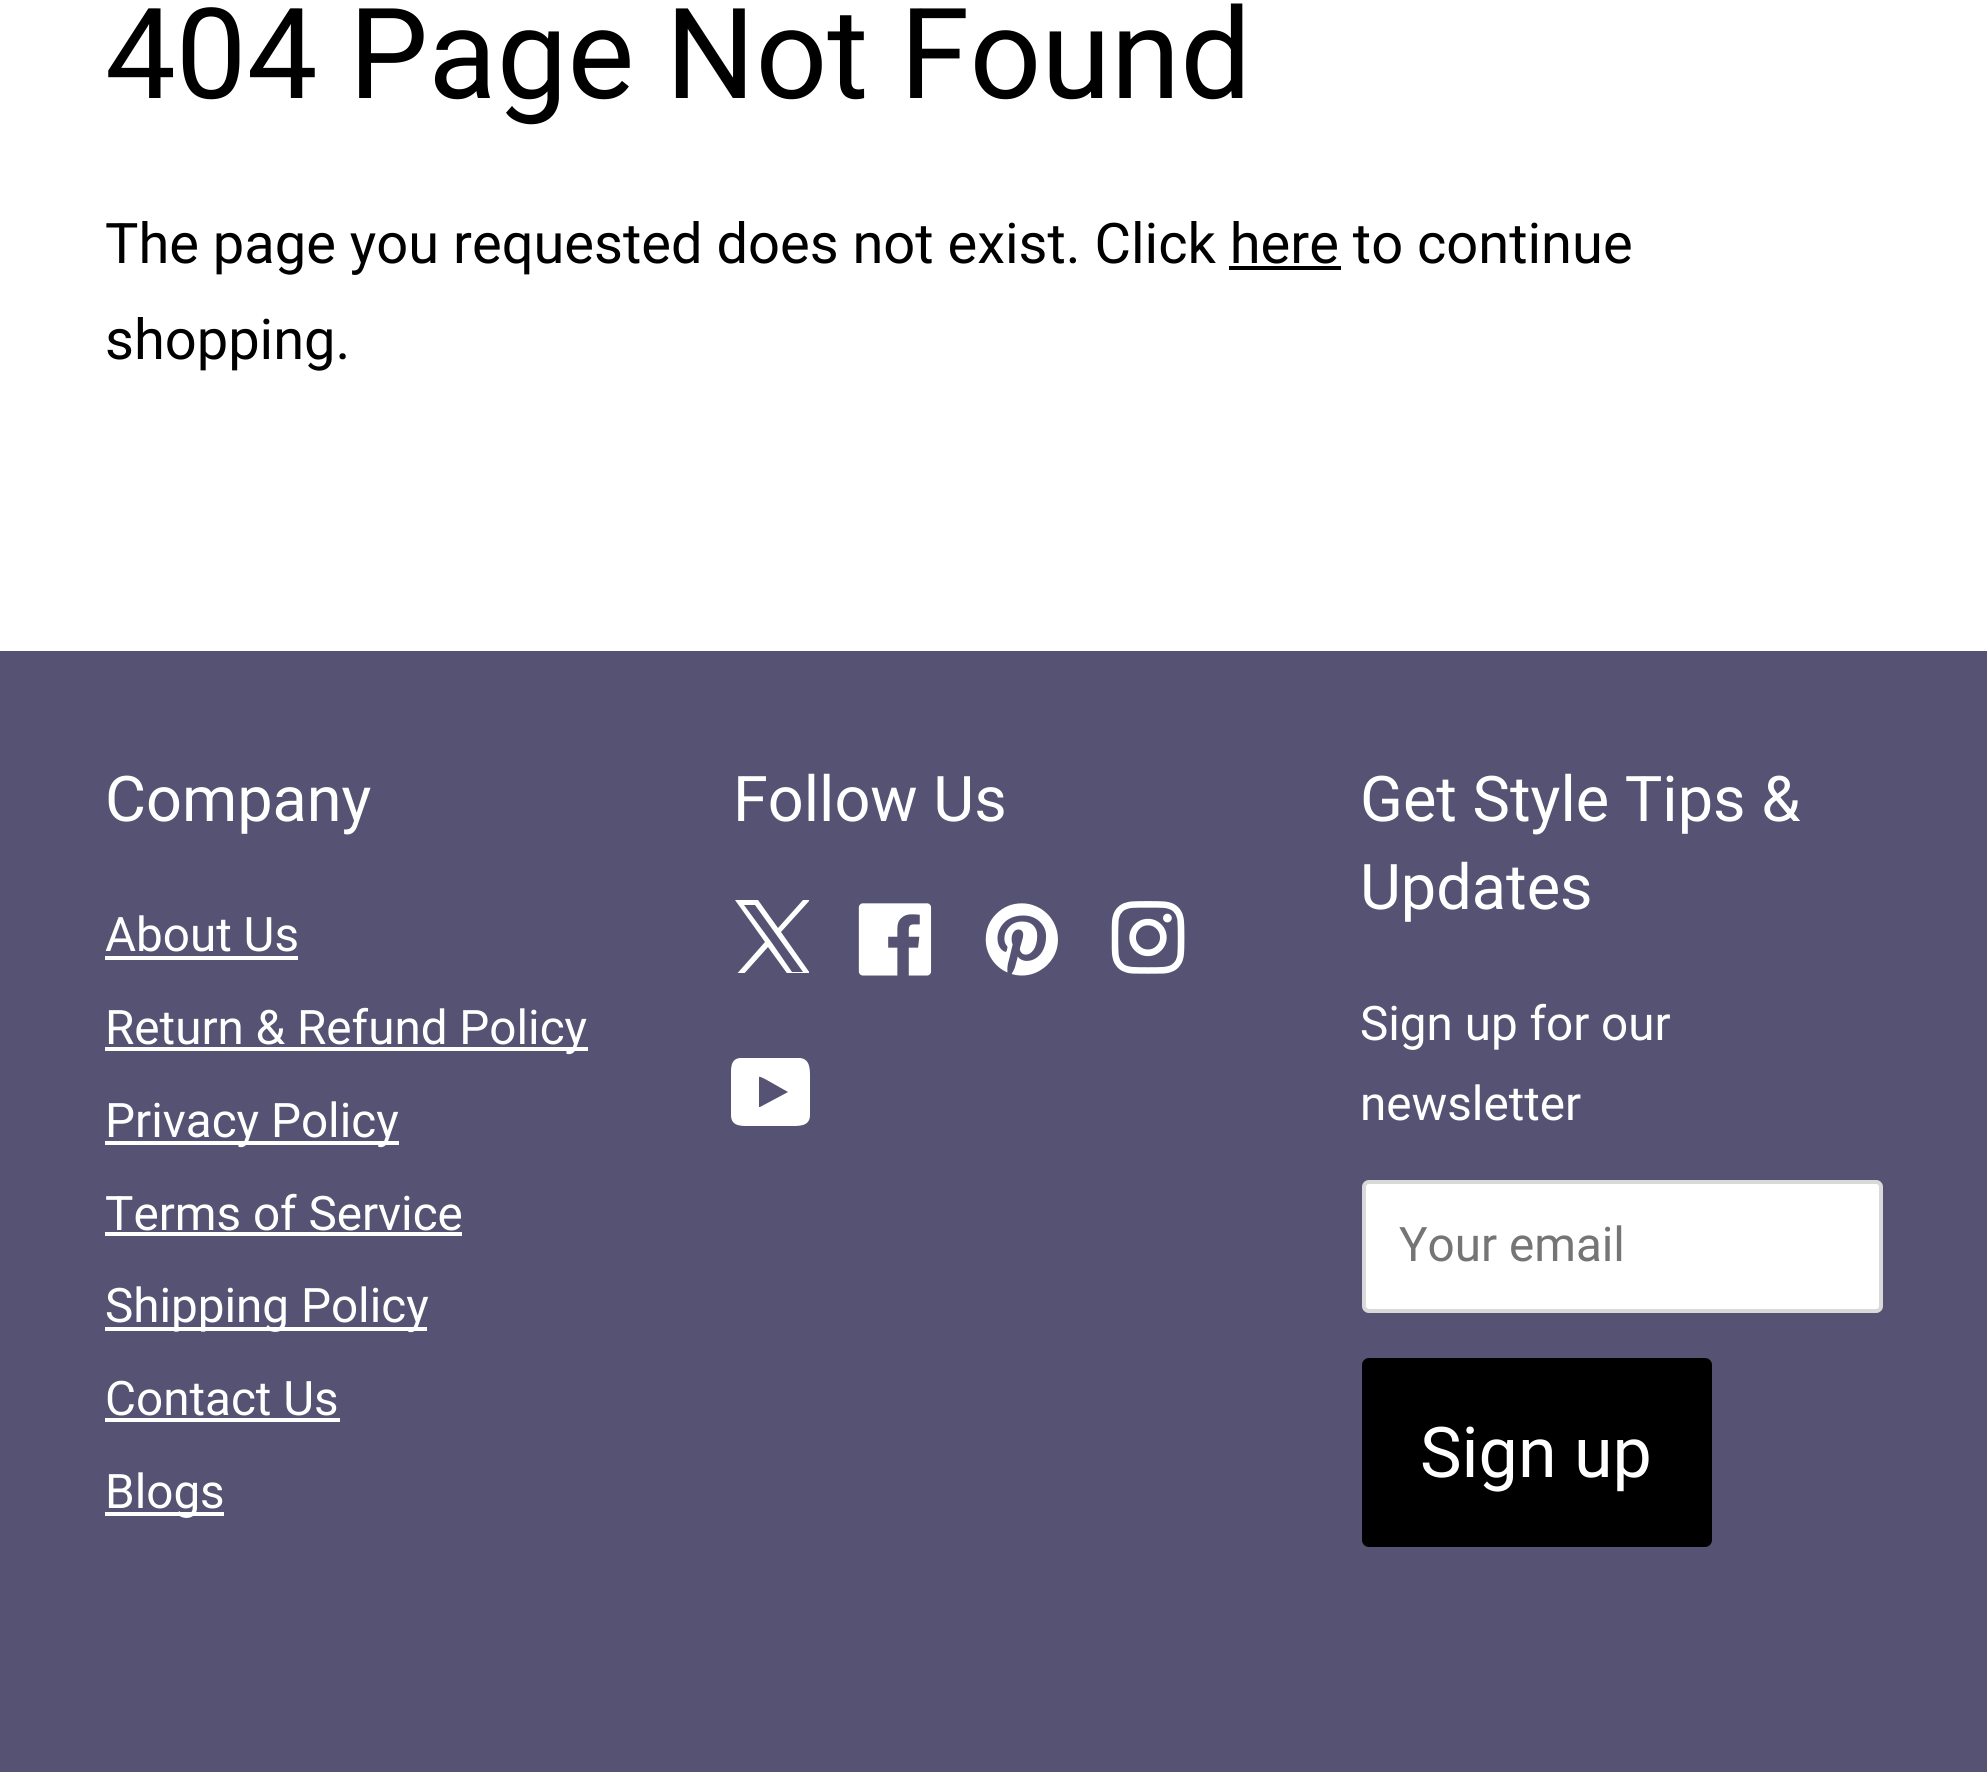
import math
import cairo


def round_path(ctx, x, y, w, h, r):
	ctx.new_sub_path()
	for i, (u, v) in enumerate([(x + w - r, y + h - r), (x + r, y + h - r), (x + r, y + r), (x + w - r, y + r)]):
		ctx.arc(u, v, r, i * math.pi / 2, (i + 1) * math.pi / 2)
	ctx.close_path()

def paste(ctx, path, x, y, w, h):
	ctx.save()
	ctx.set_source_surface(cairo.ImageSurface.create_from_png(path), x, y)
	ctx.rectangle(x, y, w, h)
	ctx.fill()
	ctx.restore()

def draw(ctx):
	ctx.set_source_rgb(1, 1, 1)
	ctx.paint()
	ctx.select_font_face('Roboto')
	ctx.set_font_size(126)
	ctx.set_source_rgb(0, 0, 0)
	ctx.move_to(105, 98)
	ctx.show_text('404 Page Not Found')
	ctx.set_font_size(56)
	ctx.move_to(105, 263)
	ctx.show_text('The page you requested does not exist. Click here to continue')
	ctx.rectangle(1229, 266, 112, 4)
	ctx.fill()
	ctx.move_to(105, 359)
	ctx.show_text('shopping.')
	ctx.set_source_rgb(0.333, 0.322, 0.451)
	ctx.rectangle(0, 651, 1987, 1121)
	ctx.fill()
	ctx.set_font_size(63)
	ctx.set_source_rgb(1, 1, 1)
	ctx.move_to(105, 821)
	ctx.show_text('Company')
	ctx.set_font_size(47.6)
	ctx.move_to(105, 951)
	ctx.show_text('About Us')
	ctx.rectangle(105, 956, 193, 4)
	ctx.fill()
	ctx.rectangle(105, 1047, 483, 4)
	ctx.fill()
	ctx.move_to(105, 1044)
	ctx.show_text('Return & Refund Policy')
	ctx.rectangle(105, 1141, 294, 4)
	ctx.fill()
	ctx.move_to(105, 1137)
	ctx.show_text('Privacy Policy')
	ctx.move_to(105, 1230)
	ctx.show_text('Terms of Service')
	ctx.rectangle(105, 1232, 357, 4)
	ctx.fill()
	ctx.rectangle(105, 1327, 322, 4)
	ctx.fill()
	ctx.move_to(105, 1322)
	ctx.show_text('Shipping Policy')
	ctx.move_to(105, 1415)
	ctx.show_text('Contact Us')
	ctx.rectangle(105, 1418, 235, 4)
	ctx.fill()
	ctx.rectangle(105, 1512, 119, 4)
	ctx.fill()
	ctx.move_to(105, 1508)
	ctx.show_text('Blogs')
	ctx.set_font_size(63)
	ctx.move_to(733, 821)
	ctx.show_text('Follow Us')
	ctx.save()
	ctx.rectangle(732, 896, 77, 77)
	ctx.clip()
	ctx.new_path()
	ctx.move_to(781, 932)
	ctx.line_to(810, 900)
	ctx.line_to(803, 900)
	ctx.line_to(778, 928)
	ctx.line_to(758, 900)
	ctx.line_to(735, 900)
	ctx.line_to(765, 942)
	ctx.line_to(735, 976)
	ctx.line_to(742, 976)
	ctx.line_to(768, 947)
	ctx.line_to(789, 976)
	ctx.line_to(812, 976)
	ctx.close_path()
	ctx.move_to(772, 943)
	ctx.line_to(744, 905)
	ctx.line_to(755, 905)
	ctx.line_to(803, 972)
	ctx.line_to(792, 972)
	ctx.close_path()
	ctx.fill()
	ctx.restore()
	paste(ctx, 'media/1.png', 858, 903, 74, 73)
	paste(ctx, 'media/2.png', 985, 903, 73, 73)
	paste(ctx, 'media/3.png', 1111, 901, 74, 73)
	ctx.new_path()
	ctx.move_to(731, 1115)
	ctx.curve_to(731, 1127, 742, 1126, 751, 1126)
	ctx.line_to(789, 1126)
	ctx.curve_to(798, 1126, 810, 1127, 810, 1115)
	ctx.line_to(810, 1077)
	ctx.curve_to(810, 1069, 810, 1059, 800, 1058)
	ctx.line_to(740, 1058)
	ctx.curve_to(730, 1059, 731, 1069, 731, 1077)
	ctx.close_path()
	ctx.move_to(759, 1107)
	ctx.line_to(759, 1082)
	ctx.curve_to(759, 1075, 758, 1076, 765, 1079)
	ctx.line_to(788, 1092)
	ctx.line_to(760, 1107)
	ctx.close_path()
	ctx.fill()
	ctx.move_to(1360, 821)
	ctx.show_text('Get Style Tips &')
	ctx.move_to(1360, 909)
	ctx.show_text('Updates')
	ctx.set_font_size(47.6)
	ctx.move_to(1360, 1040)
	ctx.show_text('Sign up for our')
	ctx.move_to(1360, 1120)
	ctx.show_text('newsletter')
	round_path(ctx, 1362, 1180, 521, 133, 7)
	ctx.fill()
	round_path(ctx, 1364, 1182, 517, 129, 5)
	ctx.set_source_rgba(0, 0, 0, 0.15)
	ctx.set_line_width(4)
	ctx.stroke()
	ctx.set_source_rgb(0.459, 0.459, 0.459)
	ctx.move_to(1399, 1261)
	ctx.show_text('Your email')
	ctx.set_source_rgb(0, 0, 0)
	round_path(ctx, 1362, 1358, 350, 189, 7)
	ctx.fill()
	ctx.set_font_size(70)
	ctx.set_source_rgb(1, 1, 1)
	ctx.move_to(1420, 1477)
	ctx.show_text('Sign up')


surface = cairo.ImageSurface(cairo.FORMAT_RGB24, 1987, 1772)
ctx = cairo.Context(surface)
options = cairo.FontOptions()
options.set_hint_metrics(cairo.HINT_METRICS_OFF)
options.set_hint_style(cairo.HINT_STYLE_NONE)
ctx.set_font_options(options)
ctx.set_miter_limit(4)
draw(ctx)
surface.write_to_png('image.png')
